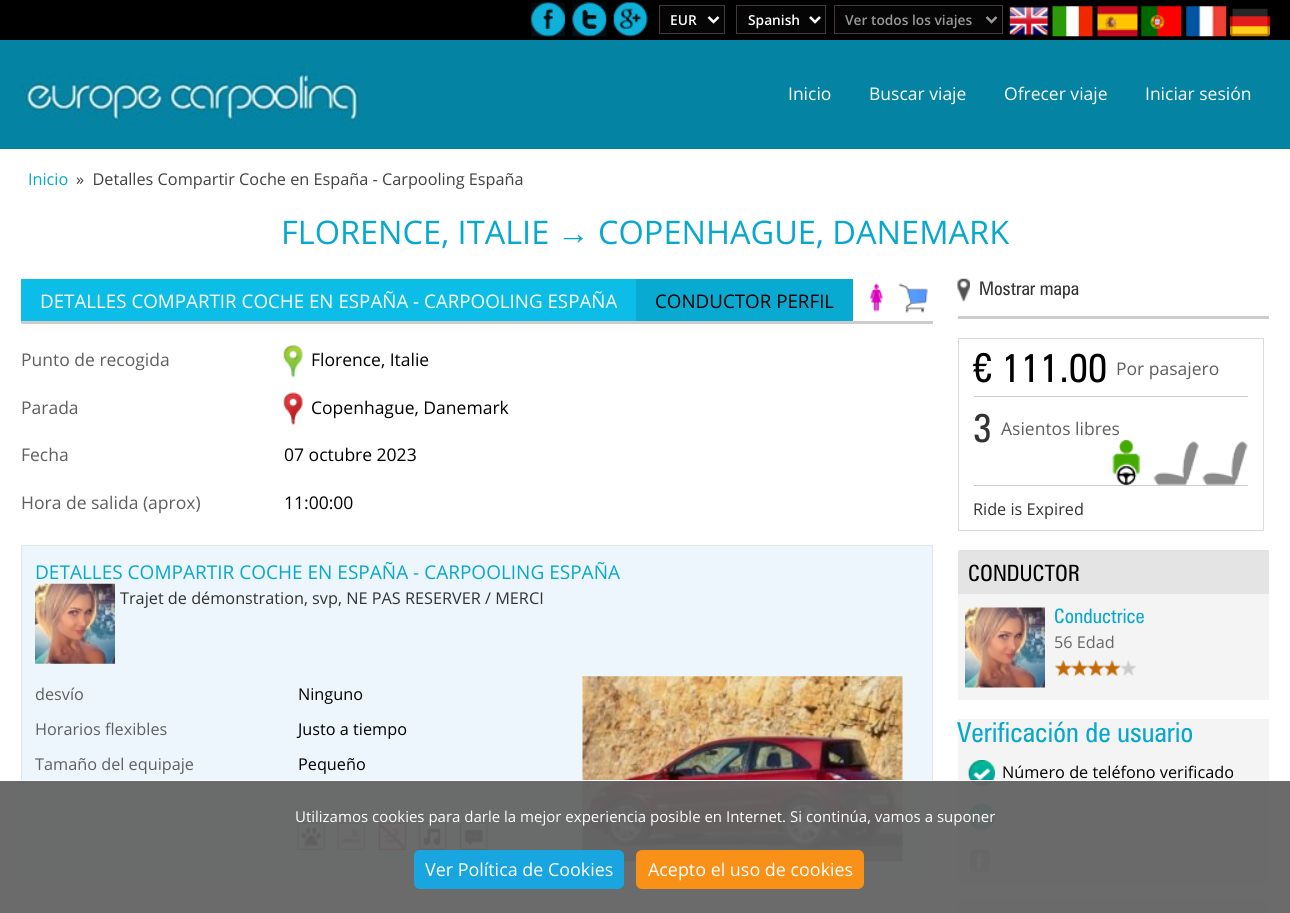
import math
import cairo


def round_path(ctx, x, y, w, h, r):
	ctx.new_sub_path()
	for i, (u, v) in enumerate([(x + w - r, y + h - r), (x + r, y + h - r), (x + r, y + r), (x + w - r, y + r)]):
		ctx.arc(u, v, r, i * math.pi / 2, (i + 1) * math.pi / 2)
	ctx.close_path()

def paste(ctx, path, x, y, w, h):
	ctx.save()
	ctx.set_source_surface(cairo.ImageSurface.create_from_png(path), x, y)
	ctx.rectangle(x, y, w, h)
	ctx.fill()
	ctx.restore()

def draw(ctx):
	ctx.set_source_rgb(1, 1, 1)
	ctx.paint()
	ctx.set_source_rgb(0, 0, 0)
	ctx.rectangle(0, 0, 1290, 40)
	ctx.fill()
	paste(ctx, 'media/1.png', 531, 2, 34, 35)
	paste(ctx, 'media/2.png', 572, 2, 35, 35)
	paste(ctx, 'media/3.png', 613, 2, 35, 35)
	ctx.set_source_rgb(0.02, 0.02, 0.02)
	ctx.rectangle(659.5, 5.5, 65, 28)
	ctx.fill_preserve()
	ctx.set_source_rgb(0.259, 0.224, 0.22)
	ctx.set_line_width(1)
	ctx.stroke()
	ctx.new_path()
	ctx.move_to(708.5, 17)
	ctx.line_to(713.5, 22)
	ctx.line_to(718.5, 17)
	ctx.set_source_rgb(1, 1, 1)
	ctx.set_line_width(2.5)
	ctx.stroke()
	ctx.select_font_face('Open Sans SemiBold')
	ctx.set_font_size(13.75)
	ctx.move_to(670, 25)
	ctx.show_text('EUR')
	ctx.set_source_rgb(0.02, 0.02, 0.02)
	ctx.rectangle(736.5, 5.5, 89, 28)
	ctx.fill_preserve()
	ctx.set_source_rgb(0.259, 0.224, 0.22)
	ctx.set_line_width(1)
	ctx.stroke()
	ctx.new_path()
	ctx.move_to(810, 17)
	ctx.line_to(815, 22)
	ctx.line_to(820, 17)
	ctx.set_source_rgb(1, 1, 1)
	ctx.set_line_width(2.5)
	ctx.stroke()
	ctx.move_to(748, 25)
	ctx.show_text('Spanish')
	ctx.set_source_rgb(0.02, 0.02, 0.02)
	ctx.rectangle(834.5, 5.5, 168, 28)
	ctx.fill_preserve()
	ctx.set_source_rgb(0.259, 0.224, 0.22)
	ctx.set_line_width(1)
	ctx.stroke()
	ctx.new_path()
	ctx.move_to(986.5, 17)
	ctx.line_to(991.5, 22)
	ctx.line_to(996.5, 17)
	ctx.set_source_rgb(0.6, 0.6, 0.6)
	ctx.set_line_width(2.5)
	ctx.stroke()
	ctx.move_to(845, 25)
	ctx.show_text('Ver todos los viajes')
	paste(ctx, 'media/4.png', 1008, 6, 41, 30)
	paste(ctx, 'media/5.png', 1052, 6, 41, 31)
	paste(ctx, 'media/6.png', 1097, 6, 41, 31)
	paste(ctx, 'media/7.png', 1141, 6, 41, 31)
	paste(ctx, 'media/8.png', 1186, 6, 41, 31)
	paste(ctx, 'media/9.png', 1230, 8, 40, 29)
	ctx.set_source_rgb(0.016, 0.514, 0.639)
	ctx.rectangle(0, 40, 1290, 109)
	ctx.fill()
	paste(ctx, 'media/10.png', 20, 65, 341, 61)
	ctx.select_font_face('Open Sans')
	ctx.set_font_size(17.5)
	ctx.set_source_rgb(1, 1, 1)
	for x, y, s in [
		(788, 100, 'Inicio'),
		(869, 100, 'Buscar viaje'),
		(1004, 100, 'Ofrecer viaje'),
		(1145, 100, 'Iniciar sesión'),
	]:
		ctx.move_to(x, y)
		ctx.show_text(s)
	ctx.set_font_size(16.25)
	ctx.set_source_rgb(0.035, 0.659, 0.808)
	ctx.move_to(28, 185)
	ctx.show_text('Inicio')
	ctx.set_source_rgb(0.255, 0.255, 0.255)
	ctx.move_to(76, 185)
	ctx.show_text('»  Detalles Compartir Coche en España - Carpooling España')
	ctx.set_font_size(32.5)
	ctx.set_source_rgb(0.035, 0.659, 0.808)
	ctx.move_to(281, 244)
	ctx.show_text('FLORENCE, ITALIE')
	ctx.select_font_face('Liberation Serif')
	ctx.move_to(557, 244)
	ctx.show_text('→')
	ctx.select_font_face('Open Sans')
	ctx.move_to(598, 244)
	ctx.show_text('COPENHAGUE, DANEMARK')
	ctx.set_source_rgb(0.8, 0.8, 0.8)
	ctx.rectangle(21, 321, 912, 3)
	ctx.fill()
	ctx.set_source_rgb(0.047, 0.741, 0.91)
	ctx.rectangle(21, 279, 615, 42)
	ctx.fill()
	ctx.set_font_size(18.75)
	ctx.set_source_rgb(1, 1, 1)
	ctx.move_to(40, 308)
	ctx.show_text('DETALLES COMPARTIR COCHE EN ESPAÑA - CARPOOLING ESPAÑA')
	ctx.set_source_rgb(0.039, 0.667, 0.82)
	ctx.rectangle(636, 279, 217, 42)
	ctx.fill()
	ctx.set_source_rgb(0, 0, 0)
	ctx.move_to(655, 308)
	ctx.show_text('CONDUCTOR PERFIL')
	paste(ctx, 'media/11.png', 869, 283, 14, 29)
	paste(ctx, 'media/12.png', 898, 283, 30, 30)
	ctx.set_font_size(17.5)
	ctx.set_source_rgb(0.373, 0.373, 0.373)
	ctx.move_to(21, 366)
	ctx.show_text('Punto de recogida')
	paste(ctx, 'media/13.png', 283, 345, 20, 33)
	ctx.set_source_rgb(0, 0, 0)
	ctx.move_to(311, 366)
	ctx.show_text('Florence, Italie')
	ctx.set_source_rgb(0.373, 0.373, 0.373)
	ctx.move_to(21, 414)
	ctx.show_text('Parada')
	paste(ctx, 'media/14.png', 283, 392, 20, 33)
	ctx.set_source_rgb(0, 0, 0)
	ctx.move_to(311, 414)
	ctx.show_text('Copenhague, Danemark')
	ctx.set_source_rgb(0.373, 0.373, 0.373)
	ctx.move_to(21, 461)
	ctx.show_text('Fecha')
	ctx.set_source_rgb(0, 0, 0)
	ctx.move_to(284, 461)
	ctx.show_text('07 octubre 2023')
	ctx.set_source_rgb(0.373, 0.373, 0.373)
	ctx.move_to(21, 509)
	ctx.show_text('Hora de salida (aprox)')
	ctx.set_source_rgb(0, 0, 0)
	ctx.move_to(284, 509)
	ctx.show_text('11:00:00')
	ctx.set_source_rgb(0.925, 0.961, 0.988)
	ctx.rectangle(21.5, 545.5, 911, 329)
	ctx.fill_preserve()
	ctx.set_source_rgb(0.89, 0.894, 0.89)
	ctx.set_line_width(1)
	ctx.stroke()
	ctx.set_font_size(19)
	ctx.set_source_rgb(0.035, 0.659, 0.808)
	ctx.move_to(35, 579)
	ctx.show_text('DETALLES COMPARTIR COCHE EN ESPAÑA - CARPOOLING ESPAÑA')
	paste(ctx, 'media/15.png', 35, 583, 80, 81)
	ctx.set_font_size(16.25)
	ctx.set_source_rgb(0.2, 0.2, 0.2)
	ctx.move_to(120, 604)
	ctx.show_text('Trajet de démonstration, svp, NE PAS RESERVER / MERCI')
	ctx.set_source_rgb(0.373, 0.373, 0.373)
	ctx.move_to(35, 700)
	ctx.show_text('desvío')
	ctx.set_source_rgb(0, 0, 0)
	ctx.move_to(298, 700)
	ctx.show_text('Ninguno')
	ctx.set_source_rgb(0.373, 0.373, 0.373)
	ctx.move_to(35, 735)
	ctx.show_text('Horarios flexibles')
	ctx.set_source_rgb(0, 0, 0)
	ctx.move_to(298, 735)
	ctx.show_text('Justo a tiempo')
	ctx.set_source_rgb(0.373, 0.373, 0.373)
	ctx.move_to(35, 770)
	ctx.show_text('Tamaño del equipaje')
	ctx.set_source_rgb(0, 0, 0)
	ctx.move_to(298, 770)
	ctx.show_text('Pequeño')
	paste(ctx, 'media/16.png', 297, 822, 28, 28)
	paste(ctx, 'media/17.png', 337, 822, 28, 28)
	paste(ctx, 'media/18.png', 378, 822, 29, 28)
	paste(ctx, 'media/19.png', 418, 822, 29, 28)
	paste(ctx, 'media/20.png', 460, 822, 28, 28)
	paste(ctx, 'media/21.png', 582, 676, 321, 186)
	paste(ctx, 'media/22.png', 957, 278, 13, 24)
	ctx.select_font_face('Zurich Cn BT')
	ctx.set_font_size(18.75)
	ctx.set_source_rgb(0.2, 0.2, 0.2)
	ctx.move_to(979, 295)
	ctx.show_text('Mostrar mapa')
	ctx.set_source_rgb(0.8, 0.8, 0.8)
	ctx.rectangle(958, 316, 311, 3)
	ctx.fill()
	ctx.rectangle(958.5, 338.5, 305, 192)
	ctx.set_source_rgb(0.859, 0.851, 0.851)
	ctx.stroke()
	ctx.set_source_rgb(0.8, 0.8, 0.8)
	ctx.rectangle(974, 396, 274, 1)
	ctx.fill()
	ctx.set_font_size(40)
	ctx.set_source_rgb(0, 0, 0)
	ctx.move_to(973, 382)
	ctx.show_text('€ 111.00')
	ctx.select_font_face('Open Sans')
	ctx.set_font_size(17.5)
	ctx.set_source_rgb(0.373, 0.373, 0.373)
	ctx.move_to(1116, 375)
	ctx.show_text('Por pasajero')
	ctx.set_source_rgb(0.8, 0.8, 0.8)
	ctx.rectangle(974, 485, 274, 1)
	ctx.fill()
	ctx.select_font_face('Zurich Cn BT')
	ctx.set_font_size(40)
	ctx.set_source_rgb(0.2, 0.2, 0.2)
	ctx.move_to(973, 442)
	ctx.show_text('3')
	ctx.select_font_face('Open Sans')
	ctx.set_font_size(17.5)
	ctx.set_source_rgb(0.373, 0.373, 0.373)
	ctx.move_to(1001, 435)
	ctx.show_text('Asientos libres')
	paste(ctx, 'media/23.png', 1112, 440, 29, 45)
	paste(ctx, 'media/24.png', 1153, 441, 46, 44)
	paste(ctx, 'media/25.png', 1202, 441, 46, 44)
	ctx.set_font_size(16.25)
	ctx.set_source_rgb(0.2, 0.2, 0.2)
	ctx.move_to(973, 515)
	ctx.show_text('Ride is Expired')
	ctx.set_source_rgb(0.957, 0.957, 0.957)
	ctx.rectangle(958, 594, 311, 106)
	ctx.fill()
	ctx.set_source_rgb(0.89, 0.894, 0.89)
	ctx.rectangle(958, 550, 311, 44)
	ctx.fill()
	ctx.select_font_face('Zurich Cn BT')
	ctx.set_font_size(22.5)
	ctx.set_source_rgb(0, 0, 0)
	ctx.move_to(968, 581)
	ctx.show_text('CONDUCTOR')
	paste(ctx, 'media/26.png', 965, 607, 80, 81)
	ctx.set_font_size(20)
	ctx.set_source_rgb(0.035, 0.659, 0.808)
	ctx.move_to(1054, 623)
	ctx.show_text('Conductrice')
	ctx.select_font_face('Open Sans')
	ctx.set_font_size(16.25)
	ctx.set_source_rgb(0.4, 0.4, 0.4)
	ctx.move_to(1054, 648)
	ctx.show_text('56 Edad')
	paste(ctx, 'media/27.png', 1055, 660, 81, 16)
	paste(ctx, 'media/28.png', 1055, 660, 65, 17)
	ctx.set_source_rgb(0.957, 0.957, 0.957)
	ctx.rectangle(958, 719, 311, 164)
	ctx.fill()
	ctx.select_font_face('Zurich Cn BT')
	ctx.set_font_size(27.5)
	ctx.set_source_rgb(0.035, 0.659, 0.808)
	ctx.move_to(957, 742)
	ctx.show_text('Verificación de usuario')
	paste(ctx, 'media/29.png', 967, 760, 28, 28)
	ctx.select_font_face('Open Sans')
	ctx.set_font_size(16.25)
	ctx.set_source_rgb(0, 0, 0)
	ctx.move_to(1002, 778)
	ctx.show_text('Número de teléfono verificado')
	paste(ctx, 'media/30.png', 967, 803, 28, 28)
	paste(ctx, 'media/31.png', 969, 850, 22, 23)
	ctx.set_source_rgb(0.89, 0.894, 0.89)
	ctx.rectangle(958, 901, 311, 12)
	ctx.fill()
	ctx.set_source_rgba(0.392, 0.392, 0.392, 0.95)
	ctx.rectangle(0, 781, 1290, 132)
	ctx.fill()
	ctx.set_source_rgb(1, 1, 1)
	ctx.rectangle(21, 780, 1248, 1)
	ctx.fill()
	ctx.set_font_size(15)
	ctx.move_to(295, 822)
	ctx.show_text('Utilizamos cookies para darle la mejor experiencia posible en Internet. Si continúa, vamos a suponer')
	ctx.set_source_rgb(0.098, 0.647, 0.875)
	round_path(ctx, 414, 850, 210, 39, 6)
	ctx.fill()
	ctx.set_font_size(17.9)
	ctx.set_source_rgb(1, 1, 1)
	ctx.move_to(425, 876)
	ctx.show_text('Ver Política de Cookies')
	ctx.set_source_rgb(0.976, 0.565, 0.09)
	round_path(ctx, 636, 850, 228, 39, 6)
	ctx.fill()
	ctx.set_source_rgb(1, 1, 1)
	ctx.move_to(648, 876)
	ctx.show_text('Acepto el uso de cookies')


surface = cairo.ImageSurface(cairo.FORMAT_RGB24, 1290, 913)
ctx = cairo.Context(surface)
options = cairo.FontOptions()
options.set_hint_metrics(cairo.HINT_METRICS_OFF)
options.set_hint_style(cairo.HINT_STYLE_NONE)
ctx.set_font_options(options)
ctx.set_miter_limit(4)
draw(ctx)
surface.write_to_png('image.png')
